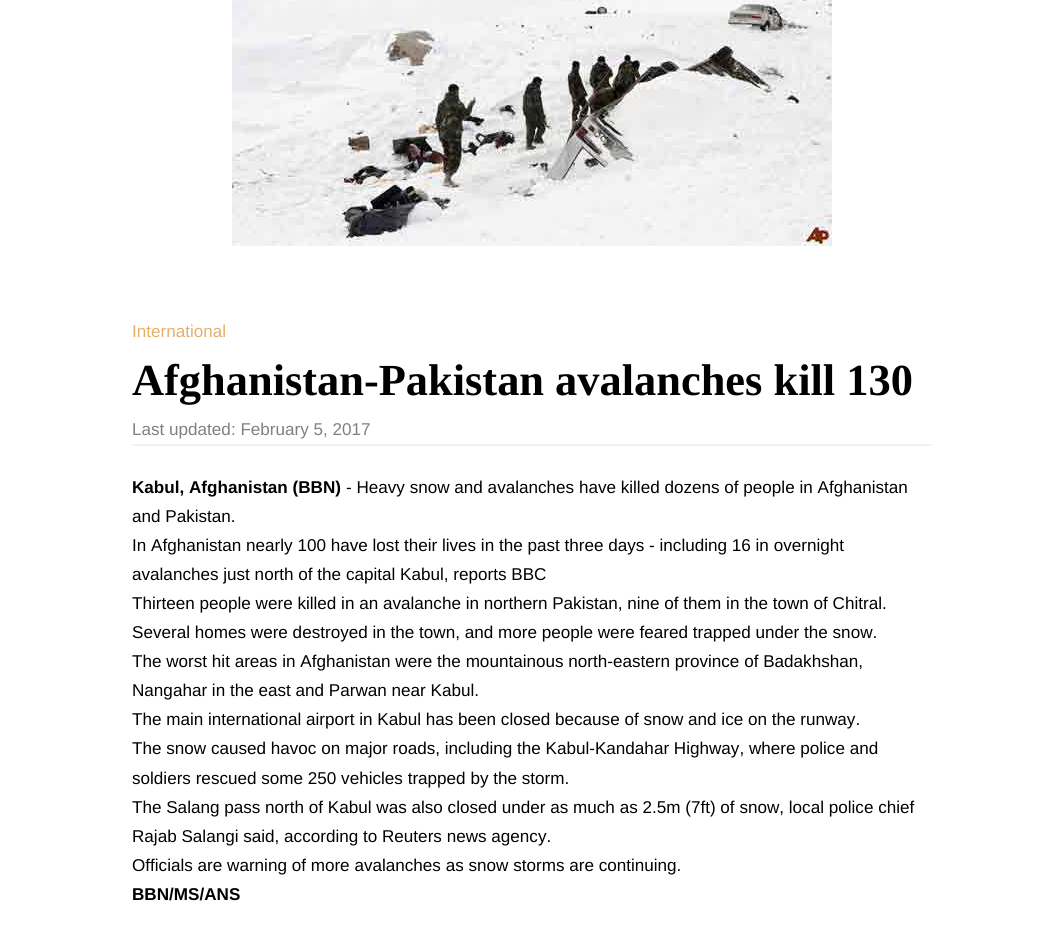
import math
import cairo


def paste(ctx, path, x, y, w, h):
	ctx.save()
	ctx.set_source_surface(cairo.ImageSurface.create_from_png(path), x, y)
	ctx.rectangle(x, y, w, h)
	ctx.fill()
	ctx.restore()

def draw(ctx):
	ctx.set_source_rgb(1, 1, 1)
	ctx.paint()
	paste(ctx, 'media/1.png', 232, 0, 600, 246)
	ctx.select_font_face('Liberation Sans')
	ctx.set_font_size(17.1)
	ctx.set_source_rgb(0.894, 0.682, 0.42)
	ctx.move_to(132, 337)
	ctx.show_text('International')
	ctx.select_font_face('Liberation Serif', cairo.FONT_SLANT_NORMAL, cairo.FONT_WEIGHT_BOLD)
	ctx.set_font_size(44.4)
	ctx.set_source_rgb(0, 0, 0)
	ctx.move_to(132, 395)
	ctx.show_text('Afghanistan-Pakistan avalanches kill 130')
	ctx.set_source_rgb(0.953, 0.949, 0.953)
	ctx.rectangle(132, 444, 800, 2)
	ctx.fill()
	ctx.select_font_face('Liberation Sans')
	ctx.set_font_size(17.1)
	ctx.set_source_rgb(0.502, 0.502, 0.502)
	ctx.move_to(132, 435)
	ctx.show_text('Last updated: February 5, 2017')
	ctx.select_font_face('Liberation Sans', cairo.FONT_SLANT_NORMAL, cairo.FONT_WEIGHT_BOLD)
	ctx.set_source_rgb(0, 0, 0)
	ctx.move_to(132, 493)
	ctx.show_text('Kabul, Afghanistan (BBN)')
	ctx.select_font_face('Liberation Sans')
	for x, y, s in [
		(346, 493, '- Heavy snow and avalanches have killed dozens of people in Afghanistan'),
		(132, 522, 'and Pakistan.'),
		(132, 551, 'In Afghanistan nearly 100 have lost their lives in the past three days - including 16 in overnight'),
		(132, 580, 'avalanches just north of the capital Kabul, reports BBC'),
		(132, 609, 'Thirteen people were killed in an avalanche in northern Pakistan, nine of them in the town of Chitral.'),
		(132, 638, 'Several homes were destroyed in the town, and more people were feared trapped under the snow.'),
		(132, 667, 'The worst hit areas in Afghanistan were the mountainous north-eastern province of Badakhshan,'),
		(132, 696, 'Nangahar in the east and Parwan near Kabul.'),
		(132, 725, 'The main international airport in Kabul has been closed because of snow and ice on the runway.'),
		(132, 754, 'The snow caused havoc on major roads, including the Kabul-Kandahar Highway, where police and'),
		(132, 784, 'soldiers rescued some 250 vehicles trapped by the storm.'),
		(132, 813, 'The Salang pass north of Kabul was also closed under as much as 2.5m (7ft) of snow, local police chief'),
		(132, 842, 'Rajab Salangi said, according to Reuters news agency.'),
		(132, 871, 'Officials are warning of more avalanches as snow storms are continuing.'),
	]:
		ctx.move_to(x, y)
		ctx.show_text(s)
	ctx.select_font_face('Liberation Sans', cairo.FONT_SLANT_NORMAL, cairo.FONT_WEIGHT_BOLD)
	ctx.move_to(132, 900)
	ctx.show_text('BBN/MS/ANS')


surface = cairo.ImageSurface(cairo.FORMAT_RGB24, 1064, 933)
ctx = cairo.Context(surface)
options = cairo.FontOptions()
options.set_hint_metrics(cairo.HINT_METRICS_OFF)
options.set_hint_style(cairo.HINT_STYLE_NONE)
ctx.set_font_options(options)
ctx.set_miter_limit(4)
draw(ctx)
surface.write_to_png('image.png')
